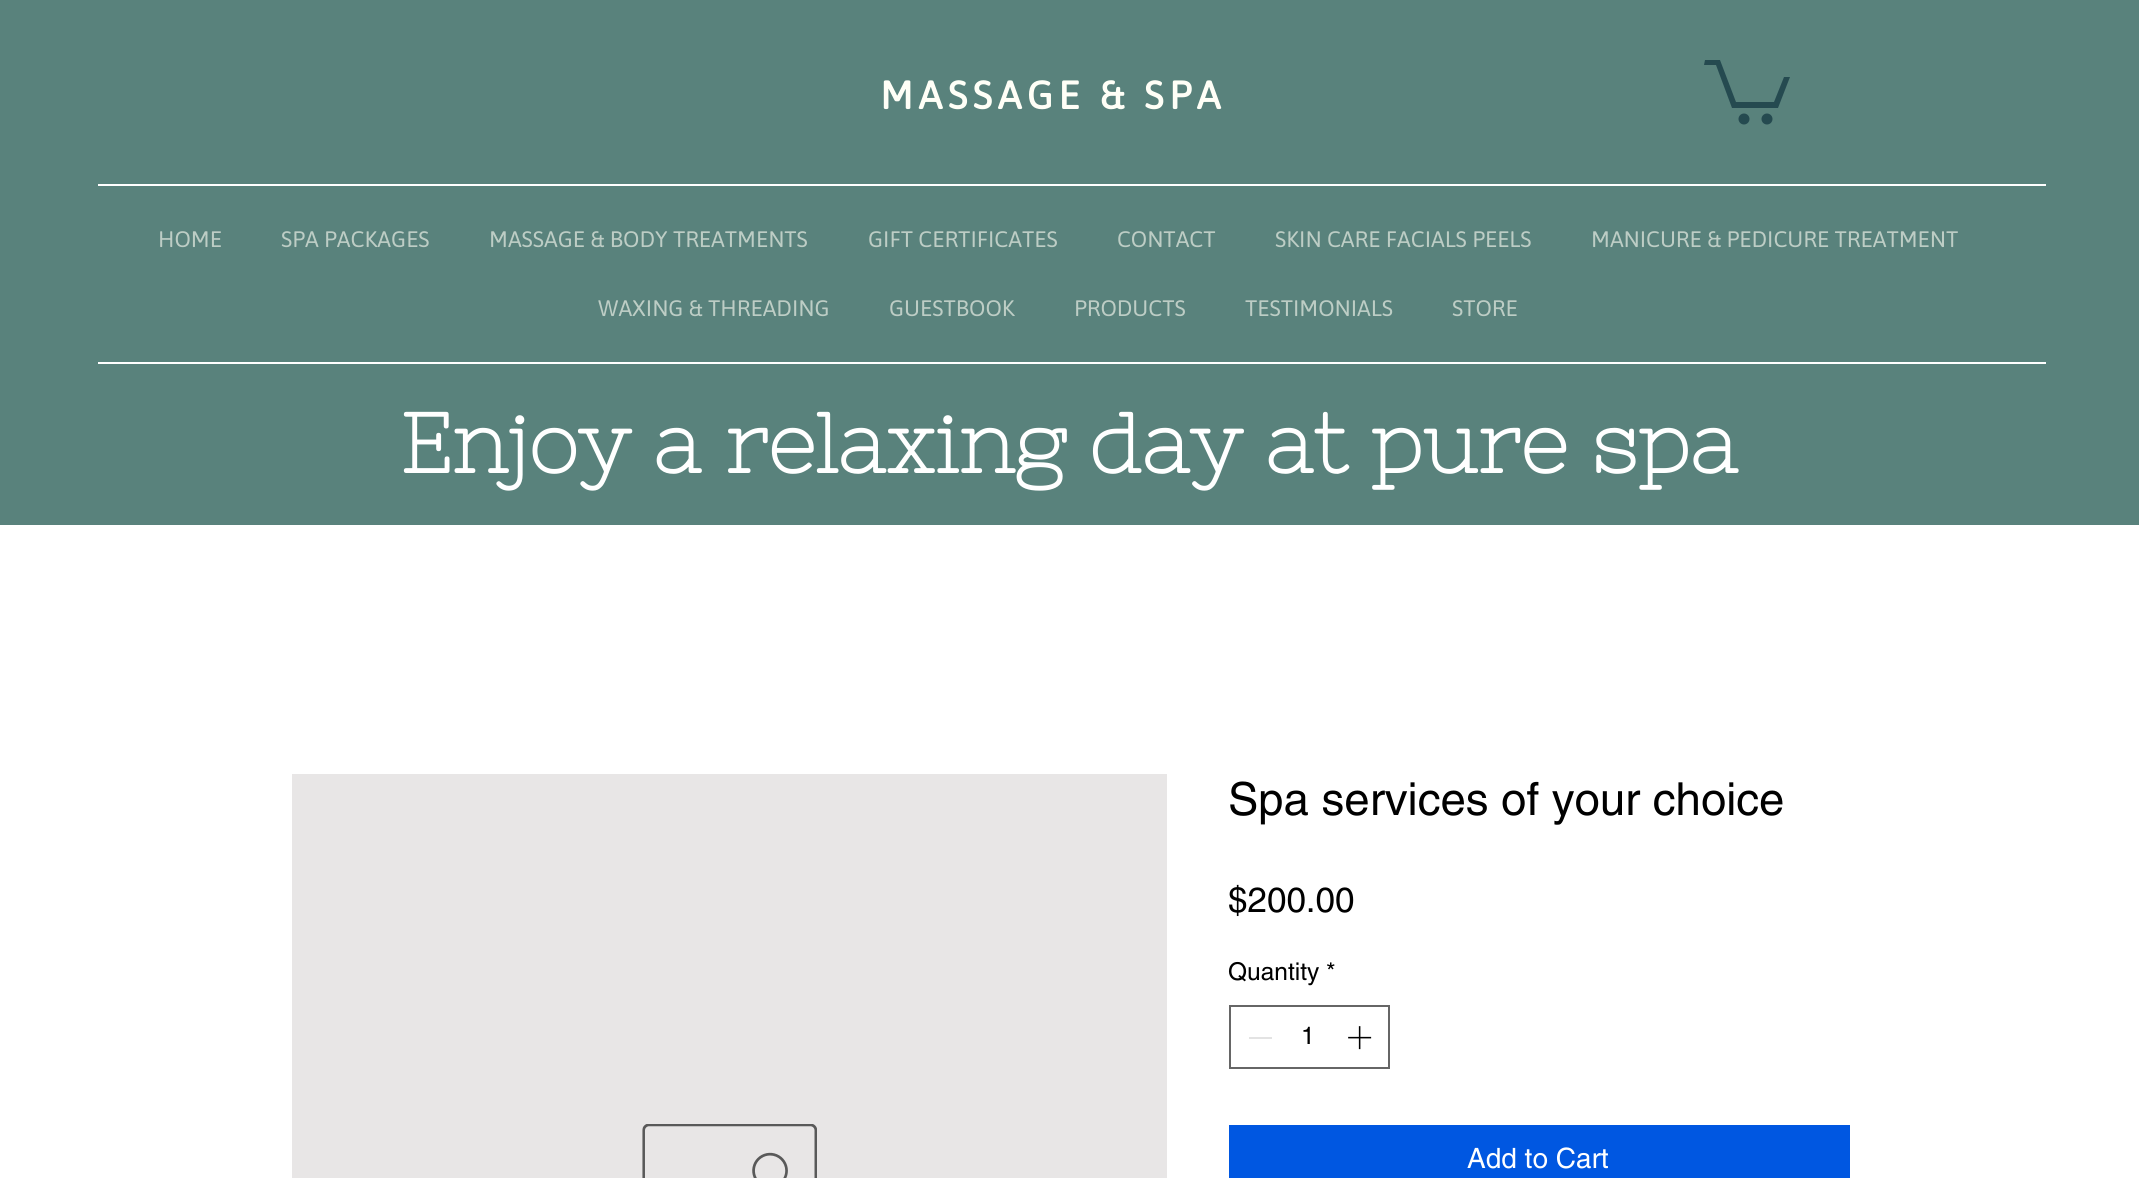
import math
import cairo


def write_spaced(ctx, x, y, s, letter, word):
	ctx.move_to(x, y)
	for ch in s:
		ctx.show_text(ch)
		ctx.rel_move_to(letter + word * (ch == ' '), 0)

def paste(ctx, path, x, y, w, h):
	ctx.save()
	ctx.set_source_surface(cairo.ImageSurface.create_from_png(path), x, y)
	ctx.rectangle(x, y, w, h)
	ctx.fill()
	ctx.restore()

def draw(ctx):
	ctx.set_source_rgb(1, 1, 1)
	ctx.paint()
	ctx.set_source_rgb(0.349, 0.51, 0.486)
	ctx.rectangle(0, 0, 2139, 525)
	ctx.fill()
	ctx.set_source_rgb(0.145, 0.29, 0.314)
	ctx.new_path()
	ctx.move_to(1790, 77)
	ctx.line_to(1778, 108)
	ctx.line_to(1732, 108)
	ctx.line_to(1716, 65)
	ctx.line_to(1704, 65)
	ctx.line_to(1705, 60)
	ctx.line_to(1720, 60)
	ctx.line_to(1736, 102)
	ctx.line_to(1774, 102)
	ctx.line_to(1784, 77)
	ctx.fill()
	ctx.arc(1767, 119, 5.5, 0, 2 * math.pi)
	ctx.fill()
	ctx.arc(1744, 119, 5.5, 0, 2 * math.pi)
	ctx.fill()
	ctx.select_font_face('Asap', cairo.FONT_SLANT_NORMAL, cairo.FONT_WEIGHT_BOLD)
	ctx.set_font_size(39.25)
	ctx.set_source_rgb(1, 1, 0.965)
	write_spaced(ctx, 880, 109, 'MASSAGE & SPA', 5.25, 0)
	ctx.set_source_rgb(1, 1, 1)
	ctx.rectangle(98, 184, 1948, 2)
	ctx.fill()
	ctx.select_font_face('Asap')
	ctx.set_font_size(22.4)
	ctx.set_source_rgb(0.741, 0.804, 0.773)
	for x, y, s in [
		(158, 247, 'HOME'),
		(281, 247, 'SPA PACKAGES'),
		(489, 247, 'MASSAGE & BODY TREATMENTS'),
		(868, 247, 'GIFT CERTIFICATES'),
		(1117, 247, 'CONTACT'),
		(1275, 247, 'SKIN CARE FACIALS PEELS'),
		(1591, 247, 'MANICURE & PEDICURE TREATMENT'),
		(598, 316, 'WAXING & THREADING'),
		(889, 316, 'GUESTBOOK'),
		(1074, 316, 'PRODUCTS'),
		(1245, 316, 'TESTIMONIALS'),
		(1452, 316, 'STORE'),
	]:
		ctx.move_to(x, y)
		ctx.show_text(s)
	ctx.set_source_rgb(1, 1, 1)
	ctx.rectangle(98, 362, 1948, 2)
	ctx.fill()
	ctx.select_font_face('Nixie One', cairo.FONT_SLANT_NORMAL, cairo.FONT_WEIGHT_BOLD)
	ctx.set_font_size(84)
	ctx.move_to(400, 473)
	ctx.show_text('Enjoy a relaxing day at pure spa')
	ctx.set_source_rgb(0.91, 0.902, 0.902)
	ctx.rectangle(292, 774, 875, 404)
	ctx.fill()
	paste(ctx, 'media/1.png', 642, 1124, 175, 54)
	ctx.select_font_face('helvetica')
	ctx.set_font_size(45.5)
	ctx.set_source_rgb(0, 0, 0)
	ctx.move_to(1228, 815)
	ctx.show_text('Spa services of your choice')
	ctx.set_font_size(35)
	ctx.move_to(1228, 912)
	ctx.show_text('$200.00')
	ctx.set_font_size(24.5)
	ctx.move_to(1228, 980)
	ctx.show_text('Quantity *')
	ctx.rectangle(1230, 1006, 159, 62)
	ctx.set_source_rgb(0.4, 0.4, 0.4)
	ctx.stroke()
	ctx.set_source_rgb(0.89, 0.89, 0.89)
	ctx.rectangle(1249, 1037, 23, 2)
	ctx.fill()
	ctx.set_source_rgb(0, 0, 0)
	ctx.move_to(1301, 1044)
	ctx.show_text('1')
	paste(ctx, 'media/2.png', 1348, 1026, 24, 24)
	ctx.set_source_rgb(0, 0.341, 0.882)
	ctx.rectangle(1229, 1125, 621, 53)
	ctx.fill()
	ctx.set_font_size(28)
	ctx.set_source_rgb(1, 1, 1)
	ctx.move_to(1467, 1168)
	ctx.show_text('Add to Cart')


surface = cairo.ImageSurface(cairo.FORMAT_RGB24, 2139, 1178)
ctx = cairo.Context(surface)
options = cairo.FontOptions()
options.set_hint_metrics(cairo.HINT_METRICS_OFF)
options.set_hint_style(cairo.HINT_STYLE_NONE)
ctx.set_font_options(options)
ctx.set_miter_limit(4)
draw(ctx)
surface.write_to_png('image.png')
